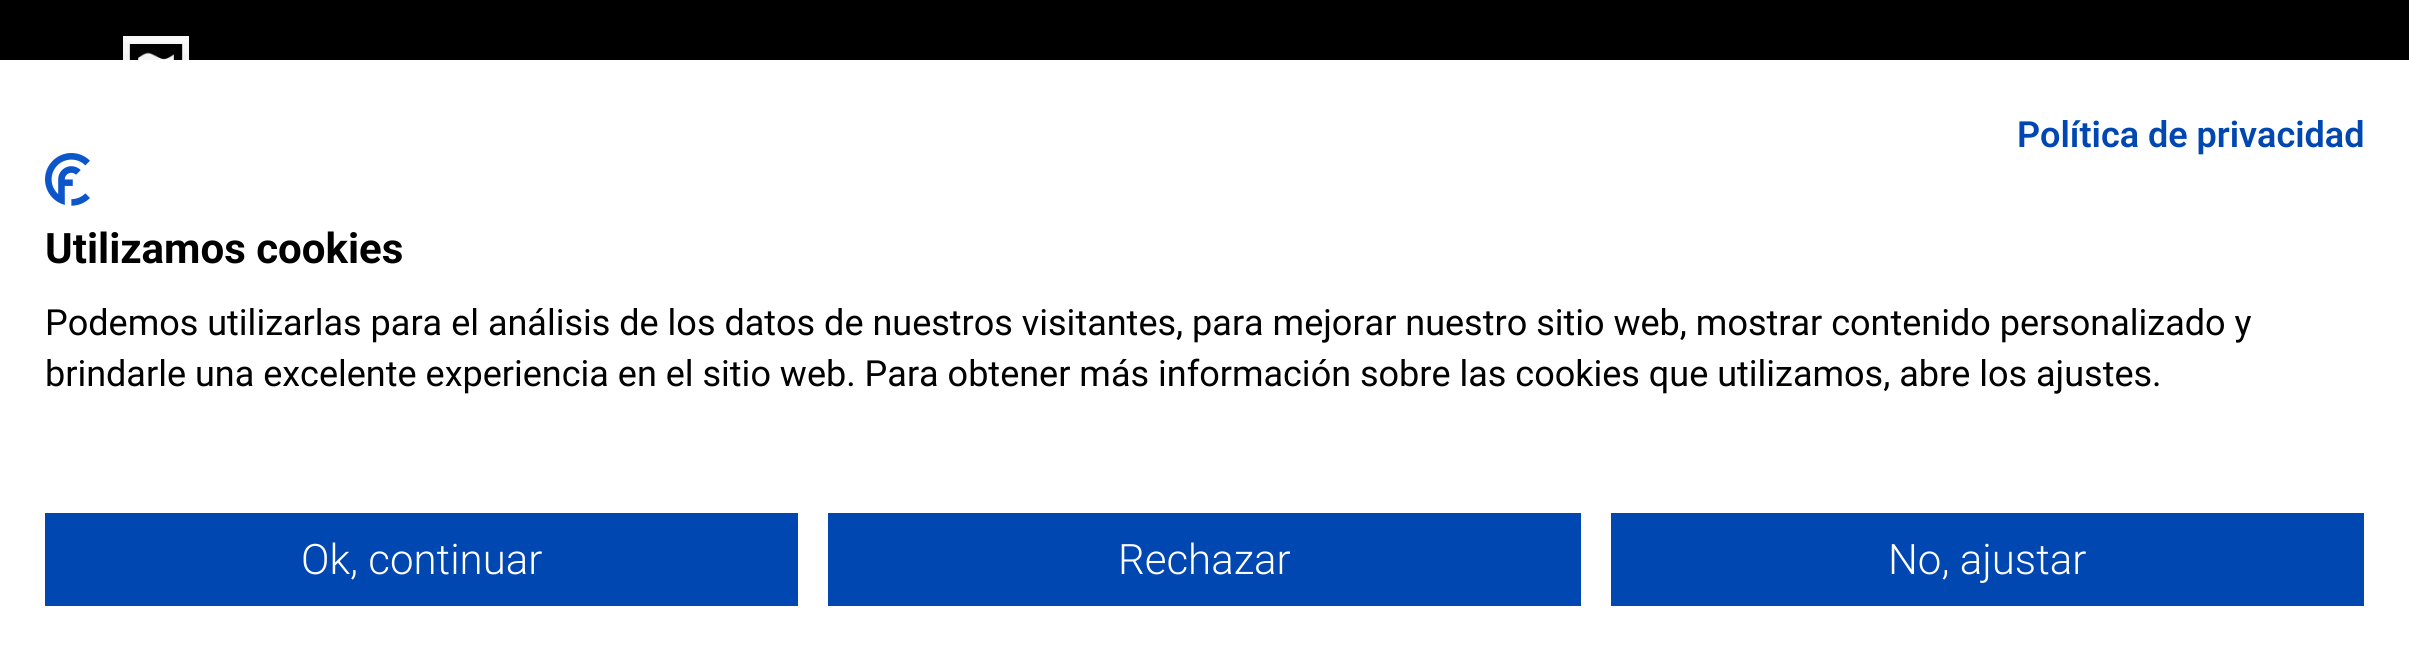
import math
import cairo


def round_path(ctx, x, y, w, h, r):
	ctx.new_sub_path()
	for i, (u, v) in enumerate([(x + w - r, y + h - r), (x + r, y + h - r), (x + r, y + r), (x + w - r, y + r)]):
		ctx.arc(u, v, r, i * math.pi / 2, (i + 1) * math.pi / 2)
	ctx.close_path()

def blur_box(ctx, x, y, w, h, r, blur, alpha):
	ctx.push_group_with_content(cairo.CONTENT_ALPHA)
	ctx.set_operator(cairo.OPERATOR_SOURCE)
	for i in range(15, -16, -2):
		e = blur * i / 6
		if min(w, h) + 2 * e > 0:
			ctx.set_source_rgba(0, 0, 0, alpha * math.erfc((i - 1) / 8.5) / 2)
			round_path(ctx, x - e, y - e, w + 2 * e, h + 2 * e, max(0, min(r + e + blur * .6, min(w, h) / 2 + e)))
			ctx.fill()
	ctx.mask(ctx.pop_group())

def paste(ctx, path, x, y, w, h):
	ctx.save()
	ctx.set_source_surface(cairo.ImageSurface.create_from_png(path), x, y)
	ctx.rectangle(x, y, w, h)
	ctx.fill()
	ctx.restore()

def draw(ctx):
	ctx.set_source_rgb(0, 0, 0)
	ctx.paint()
	paste(ctx, 'media/1.png', 123, 36, 66, 24)
	blur_box(ctx, 0, 60, 2409, 597, 0, 36, 0.1)
	ctx.set_source_rgb(1, 1, 1)
	ctx.rectangle(0, 60, 2409, 597)
	ctx.fill()
	ctx.select_font_face('Roboto SemiBold')
	ctx.set_font_size(36)
	ctx.set_source_rgb(0, 0.278, 0.698)
	ctx.move_to(2017, 147)
	ctx.show_text('Política de privacidad')
	paste(ctx, 'media/2.png', 45, 153, 45, 53)
	ctx.select_font_face('Roboto', cairo.FONT_SLANT_NORMAL, cairo.FONT_WEIGHT_BOLD)
	ctx.set_font_size(42)
	ctx.set_source_rgb(0, 0, 0)
	ctx.move_to(45, 263)
	ctx.show_text('Utilizamos cookies')
	ctx.select_font_face('Roboto')
	ctx.set_font_size(36)
	ctx.move_to(45, 335)
	ctx.show_text('Podemos utilizarlas para el análisis de los datos de nuestros visitantes, para mejorar nuestro sitio web, mostrar contenido personalizado y')
	ctx.move_to(45, 386)
	ctx.show_text('brindarle una excelente experiencia en el sitio web. Para obtener más información sobre las cookies que utilizamos, abre los ajustes.')
	ctx.set_source_rgb(0, 0.278, 0.698)
	ctx.rectangle(45, 513, 753, 93)
	ctx.fill()
	ctx.select_font_face('Roboto Light')
	ctx.set_font_size(42)
	ctx.set_source_rgb(1, 1, 1)
	ctx.move_to(301, 574)
	ctx.show_text('Ok, continuar')
	ctx.set_source_rgb(0, 0.278, 0.698)
	ctx.rectangle(828, 513, 753, 93)
	ctx.fill()
	ctx.set_source_rgb(1, 1, 1)
	ctx.move_to(1118, 574)
	ctx.show_text('Rechazar')
	ctx.set_source_rgb(0, 0.278, 0.698)
	ctx.rectangle(1611, 513, 753, 93)
	ctx.fill()
	ctx.set_source_rgb(1, 1, 1)
	ctx.move_to(1888, 574)
	ctx.show_text('No, ajustar')


surface = cairo.ImageSurface(cairo.FORMAT_RGB24, 2409, 657)
ctx = cairo.Context(surface)
options = cairo.FontOptions()
options.set_hint_metrics(cairo.HINT_METRICS_OFF)
options.set_hint_style(cairo.HINT_STYLE_NONE)
ctx.set_font_options(options)
ctx.set_miter_limit(4)
draw(ctx)
surface.write_to_png('image.png')
